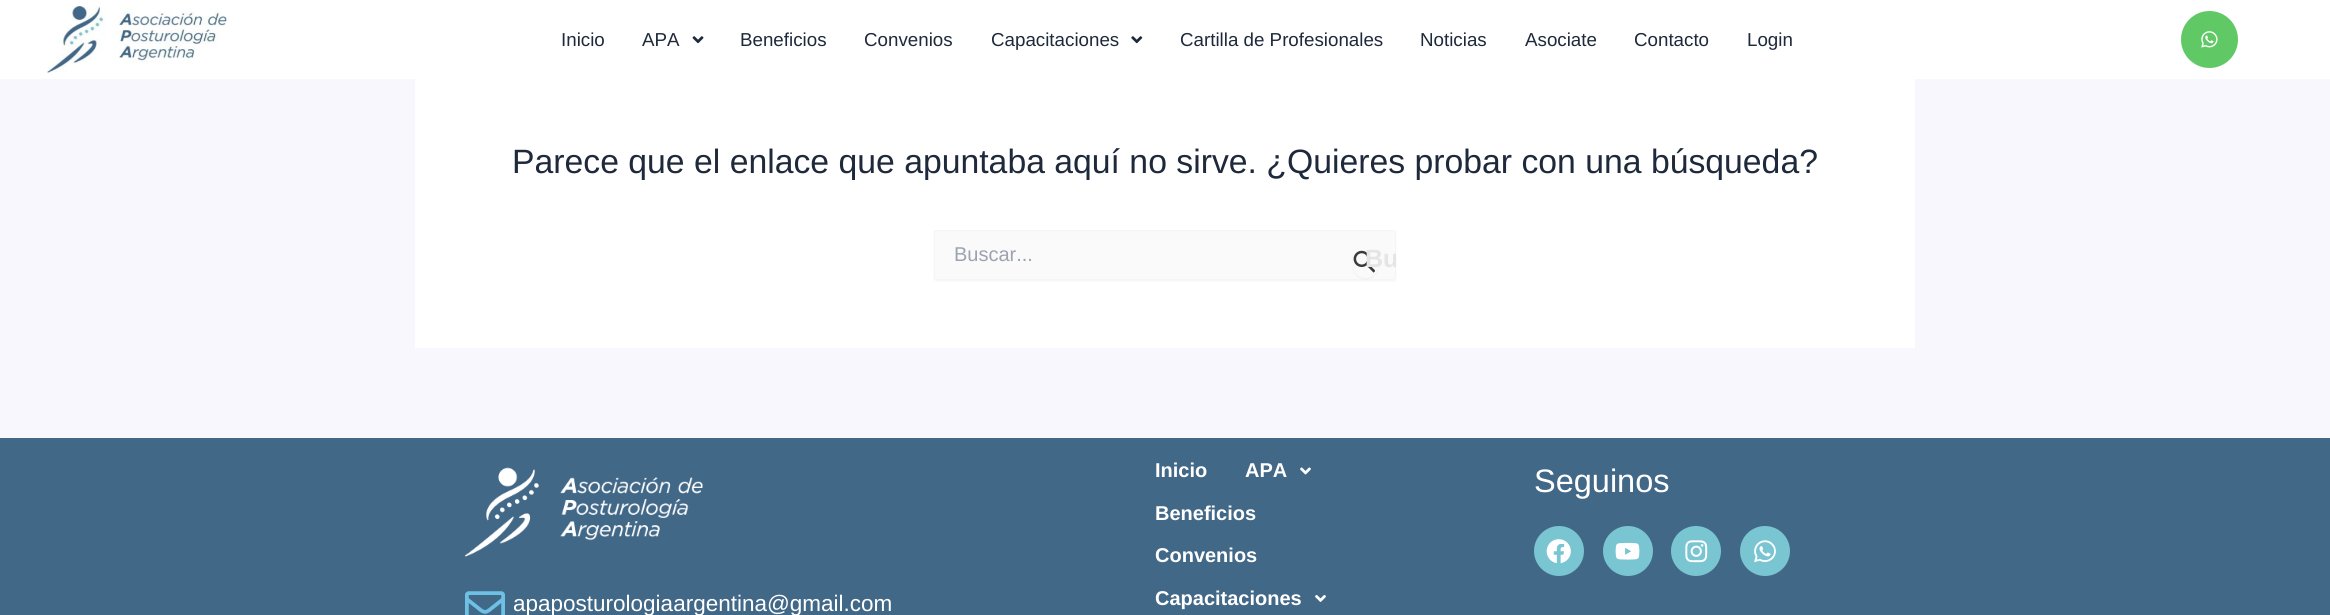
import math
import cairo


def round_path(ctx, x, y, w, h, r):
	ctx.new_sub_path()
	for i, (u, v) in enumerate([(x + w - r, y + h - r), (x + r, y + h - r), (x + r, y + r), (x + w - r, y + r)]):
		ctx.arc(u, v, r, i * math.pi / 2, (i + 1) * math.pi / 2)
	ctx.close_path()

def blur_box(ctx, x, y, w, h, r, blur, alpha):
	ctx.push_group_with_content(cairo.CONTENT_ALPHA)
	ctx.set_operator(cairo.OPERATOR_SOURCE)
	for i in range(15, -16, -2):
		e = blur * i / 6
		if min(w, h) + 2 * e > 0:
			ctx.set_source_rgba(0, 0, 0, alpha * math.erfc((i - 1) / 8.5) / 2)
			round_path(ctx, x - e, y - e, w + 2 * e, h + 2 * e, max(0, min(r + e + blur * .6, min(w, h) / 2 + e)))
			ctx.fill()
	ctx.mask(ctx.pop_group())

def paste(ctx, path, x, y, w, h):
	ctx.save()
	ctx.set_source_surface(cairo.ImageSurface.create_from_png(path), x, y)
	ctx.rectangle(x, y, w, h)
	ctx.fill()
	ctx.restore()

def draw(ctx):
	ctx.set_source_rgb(0.976, 0.965, 0.996)
	ctx.paint()
	ctx.set_source_rgb(1, 1, 1)
	ctx.rectangle(0, 0, 2330, 79)
	ctx.fill()
	paste(ctx, 'media/1.png', 47, 6, 180, 67)
	ctx.select_font_face('Liberation Sans')
	ctx.set_font_size(18.75)
	ctx.set_source_rgb(0.118, 0.161, 0.231)
	ctx.move_to(561, 46)
	ctx.show_text('Inicio')
	ctx.move_to(642, 46)
	ctx.show_text('APA')
	paste(ctx, 'media/2.png', 692, 36, 12, 8)
	for x, y, s in [
		(740, 46, 'Beneficios'),
		(864, 46, 'Convenios'),
		(991, 46, 'Capacitaciones'),
	]:
		ctx.move_to(x, y)
		ctx.show_text(s)
	paste(ctx, 'media/3.png', 1131, 36, 12, 8)
	for x, y, s in [
		(1180, 46, 'Cartilla de Profesionales'),
		(1420, 46, 'Noticias'),
		(1525, 46, 'Asociate'),
		(1634, 46, 'Contacto'),
		(1747, 46, 'Login'),
	]:
		ctx.move_to(x, y)
		ctx.show_text(s)
	ctx.set_source_rgb(0.376, 0.788, 0.396)
	ctx.new_path()
	ctx.arc(2209.5, 39.5, 28.5, 0, 2 * math.pi)
	ctx.fill()
	paste(ctx, 'media/4.png', 2201, 31, 17, 17)
	ctx.set_source_rgb(1, 1, 1)
	ctx.rectangle(415, 79, 1500, 269)
	ctx.fill()
	ctx.set_font_size(33.75)
	ctx.set_source_rgb(0.118, 0.161, 0.231)
	ctx.move_to(512, 173)
	ctx.show_text('Parece que el enlace que apuntaba aquí no sirve. ¿Quieres probar con una búsqueda?')
	ctx.set_source_rgb(0, 0, 0)
	blur_box(ctx, 934, 231, 462, 50, 2.5, 1, 0.05)
	ctx.set_source_rgb(0.98, 0.98, 0.98)
	round_path(ctx, 934.5, 230.5, 461, 49, 2)
	ctx.fill_preserve()
	ctx.set_source_rgb(0.949, 0.961, 0.969)
	ctx.set_line_width(1)
	ctx.stroke()
	ctx.set_font_size(20)
	ctx.set_source_rgb(0.612, 0.639, 0.686)
	ctx.move_to(954, 261)
	ctx.show_text('Buscar...')
	ctx.save()
	ctx.set_fill_rule(cairo.FILL_RULE_EVEN_ODD)
	ctx.new_path()
	ctx.move_to(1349, 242)
	ctx.line_to(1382, 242)
	ctx.line_to(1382, 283)
	ctx.line_to(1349, 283)
	ctx.close_path()
	ctx.move_to(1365.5, 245)
	ctx.curve_to(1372.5, 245, 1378, 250.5, 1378, 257.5)
	ctx.line_to(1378, 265.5)
	ctx.curve_to(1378, 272.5, 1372.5, 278, 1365.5, 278)
	ctx.curve_to(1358.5, 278, 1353, 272.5, 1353, 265.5)
	ctx.line_to(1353, 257.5)
	ctx.curve_to(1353, 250.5, 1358.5, 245, 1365.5, 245)
	ctx.close_path()
	ctx.clip()
	ctx.set_source_rgb(0, 0, 0)
	blur_box(ctx, 1353, 246, 25, 33, 12.5, 1, 0.05)
	ctx.restore()
	paste(ctx, 'media/5.png', 1353, 250, 22, 23)
	ctx.save()
	round_path(ctx, 1340, 230, 56, 58, 2.5)
	ctx.clip()
	ctx.select_font_face('Liberation Sans', cairo.FONT_SLANT_NORMAL, cairo.FONT_WEIGHT_BOLD)
	ctx.set_font_size(25)
	ctx.set_source_rgb(0.898, 0.898, 0.898)
	ctx.move_to(1365, 267)
	ctx.show_text('Bu')
	ctx.restore()
	ctx.set_source_rgb(0.259, 0.408, 0.533)
	ctx.rectangle(0, 438, 2330, 177)
	ctx.fill()
	ctx.select_font_face('Liberation Sans', cairo.FONT_SLANT_NORMAL, cairo.FONT_WEIGHT_BOLD)
	ctx.set_source_rgb(1, 1, 1)
	ctx.move_to(1155, 477)
	ctx.show_text('Inicio')
	ctx.move_to(1245, 477)
	ctx.show_text('APA')
	paste(ctx, 'media/6.png', 1300, 467, 11, 8)
	for x, y, s in [
		(1155, 520, 'Beneficios'),
		(1155, 562, 'Convenios'),
		(1155, 605, 'Capacitaciones'),
	]:
		ctx.move_to(x, y)
		ctx.show_text(s)
	paste(ctx, 'media/7.png', 1315, 595, 11, 7)
	ctx.select_font_face('Liberation Sans')
	ctx.set_font_size(32.5)
	ctx.move_to(1534, 492)
	ctx.show_text('Seguinos')
	ctx.set_source_rgb(0.475, 0.773, 0.82)
	ctx.new_path()
	ctx.arc(1559, 551, 25, 0, 2 * math.pi)
	ctx.fill()
	paste(ctx, 'media/8.png', 1546, 539, 25, 25)
	ctx.arc(1628, 551, 25, 0, 2 * math.pi)
	ctx.fill()
	paste(ctx, 'media/9.png', 1615, 542, 25, 18)
	ctx.arc(1696, 551, 25, 0, 2 * math.pi)
	ctx.fill()
	paste(ctx, 'media/10.png', 1685, 540, 23, 23)
	ctx.arc(1765, 551, 25, 0, 2 * math.pi)
	ctx.fill()
	paste(ctx, 'media/11.png', 1754, 540, 22, 23)
	paste(ctx, 'media/12.png', 465, 467, 238, 90)
	paste(ctx, 'media/13.png', 465, 591, 40, 24)
	ctx.set_font_size(22.5)
	ctx.set_source_rgb(1, 1, 1)
	ctx.move_to(513, 611)
	ctx.show_text('apaposturologiaargentina@gmail.com')


surface = cairo.ImageSurface(cairo.FORMAT_RGB24, 2330, 615)
ctx = cairo.Context(surface)
options = cairo.FontOptions()
options.set_hint_metrics(cairo.HINT_METRICS_OFF)
options.set_hint_style(cairo.HINT_STYLE_NONE)
ctx.set_font_options(options)
ctx.set_miter_limit(4)
draw(ctx)
surface.write_to_png('image.png')
